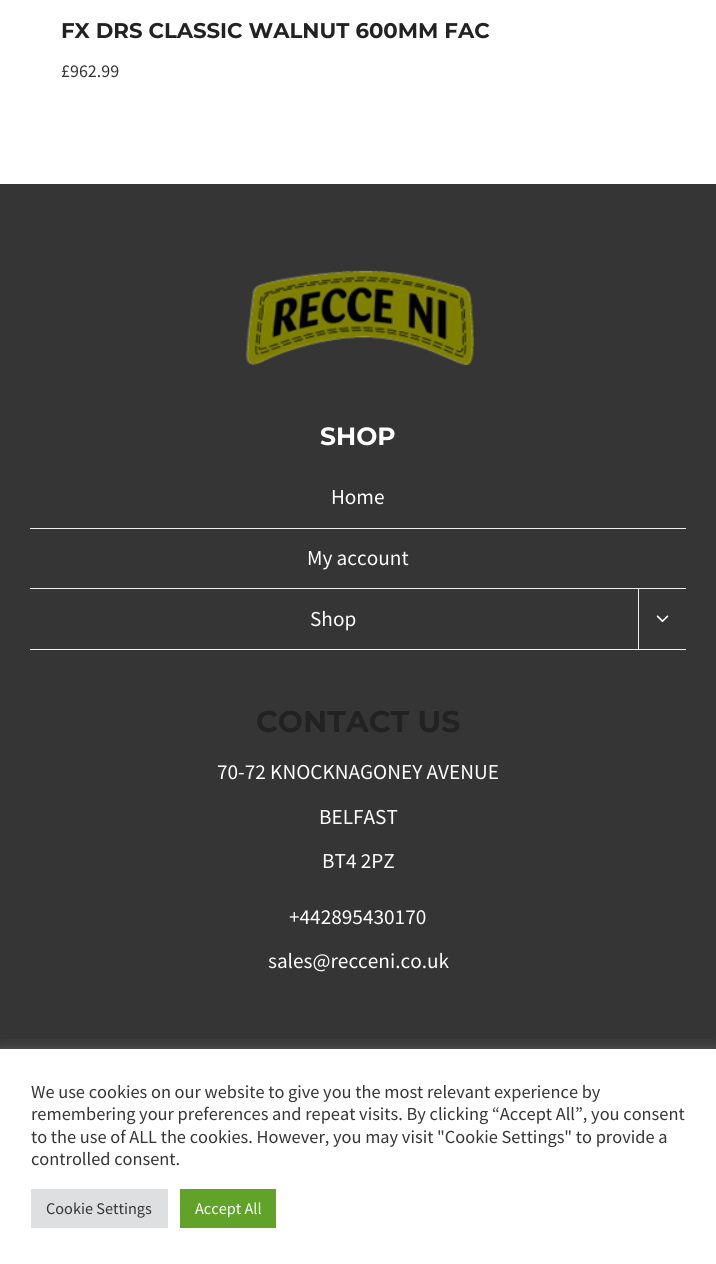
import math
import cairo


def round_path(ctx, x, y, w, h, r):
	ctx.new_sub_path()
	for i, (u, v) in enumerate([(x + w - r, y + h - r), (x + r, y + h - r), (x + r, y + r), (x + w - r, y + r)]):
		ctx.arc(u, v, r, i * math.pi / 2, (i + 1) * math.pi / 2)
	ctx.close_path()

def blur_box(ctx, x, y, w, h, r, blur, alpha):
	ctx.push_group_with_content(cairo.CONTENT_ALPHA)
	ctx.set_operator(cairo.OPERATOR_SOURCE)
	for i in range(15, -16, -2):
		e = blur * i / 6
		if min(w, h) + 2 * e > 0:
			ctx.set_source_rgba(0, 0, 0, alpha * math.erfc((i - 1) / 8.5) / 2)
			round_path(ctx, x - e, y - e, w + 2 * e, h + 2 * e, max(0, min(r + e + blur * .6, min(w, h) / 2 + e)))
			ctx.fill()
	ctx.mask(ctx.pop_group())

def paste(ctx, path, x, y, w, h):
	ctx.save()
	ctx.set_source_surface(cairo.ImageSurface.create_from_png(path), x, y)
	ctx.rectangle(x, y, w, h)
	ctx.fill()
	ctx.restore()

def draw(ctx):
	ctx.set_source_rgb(1, 1, 1)
	ctx.paint()
	ctx.select_font_face('Montserrat Thin')
	ctx.set_font_size(21.25)
	ctx.set_source_rgb(0.133, 0.133, 0.133)
	ctx.move_to(61, 38)
	ctx.show_text('FX DRS CLASSIC WALNUT 600MM FAC')
	ctx.select_font_face('Source Sans Pro')
	ctx.set_font_size(18)
	ctx.set_source_rgb(0.208, 0.208, 0.208)
	ctx.move_to(61, 77)
	ctx.show_text('£962.99')
	ctx.rectangle(0, 184, 716, 865)
	ctx.fill()
	paste(ctx, 'media/1.png', 246, 270, 228, 95)
	ctx.select_font_face('Montserrat Thin')
	ctx.set_font_size(25)
	ctx.set_source_rgb(1, 1, 1)
	ctx.move_to(320, 445)
	ctx.show_text('SHOP')
	ctx.set_source_rgb(0.933, 0.933, 0.933)
	ctx.rectangle(30, 528, 656, 1)
	ctx.fill()
	ctx.select_font_face('Source Sans Pro')
	ctx.set_font_size(21.25)
	ctx.set_source_rgb(1, 1, 1)
	ctx.move_to(331, 504)
	ctx.show_text('Home')
	ctx.set_source_rgb(0.933, 0.933, 0.933)
	ctx.rectangle(30, 588, 656, 1)
	ctx.fill()
	ctx.set_source_rgb(1, 1, 1)
	ctx.move_to(307, 565)
	ctx.show_text('My account')
	ctx.set_source_rgb(0.933, 0.933, 0.933)
	ctx.rectangle(30, 649, 656, 1)
	ctx.fill()
	ctx.set_source_rgb(1, 1, 1)
	ctx.move_to(310, 626)
	ctx.show_text('Shop')
	ctx.set_source_rgb(0.933, 0.933, 0.933)
	ctx.rectangle(638, 589, 1, 61)
	ctx.fill()
	paste(ctx, 'media/2.png', 656, 615, 13, 7)
	ctx.select_font_face('Montserrat Thin')
	ctx.set_font_size(30)
	ctx.set_source_rgb(0.133, 0.133, 0.133)
	ctx.move_to(256, 732)
	ctx.show_text('CONTACT US')
	ctx.select_font_face('Source Sans Pro')
	ctx.set_font_size(21.25)
	ctx.set_source_rgb(1, 1, 1)
	for x, y, s in [
		(217, 779, '70-72 KNOCKNAGONEY AVENUE'),
		(319, 824, 'BELFAST'),
		(322, 868, 'BT4 2PZ'),
		(289, 924, '+442895430170'),
		(268, 968, 'sales@recceni.co.uk'),
	]:
		ctx.move_to(x, y)
		ctx.show_text(s)
	ctx.set_source_rgb(0.675, 0.671, 0.671)
	blur_box(ctx, 0, 1048, 716, 216, 0, 6, 0.3)
	ctx.set_source_rgb(1, 1, 1)
	ctx.rectangle(0, 1049, 716, 215)
	ctx.fill()
	ctx.set_font_size(18.35)
	ctx.set_source_rgb(0.208, 0.208, 0.208)
	for x, y, s in [
		(31, 1098, 'We use cookies on our website to give you the most relevant experience by'),
		(31, 1120, 'remembering your preferences and repeat visits. By clicking “Accept All”, you consent'),
		(31, 1143, 'to the use of ALL the cookies. However, you may visit "Cookie Settings" to provide a'),
		(31, 1165, 'controlled consent.'),
	]:
		ctx.move_to(x, y)
		ctx.show_text(s)
	ctx.set_source_rgb(0.871, 0.875, 0.878)
	ctx.rectangle(31, 1189, 137, 39)
	ctx.fill()
	ctx.set_font_size(16.25)
	ctx.set_source_rgb(0.208, 0.208, 0.208)
	ctx.move_to(46, 1214)
	ctx.show_text('Cookie Settings')
	ctx.set_source_rgb(0.38, 0.635, 0.161)
	ctx.rectangle(180, 1189, 96, 39)
	ctx.fill()
	ctx.set_source_rgb(1, 1, 1)
	ctx.move_to(195, 1214)
	ctx.show_text('Accept All')


surface = cairo.ImageSurface(cairo.FORMAT_RGB24, 716, 1264)
ctx = cairo.Context(surface)
options = cairo.FontOptions()
options.set_hint_metrics(cairo.HINT_METRICS_OFF)
options.set_hint_style(cairo.HINT_STYLE_NONE)
ctx.set_font_options(options)
ctx.set_miter_limit(4)
draw(ctx)
surface.write_to_png('image.png')
